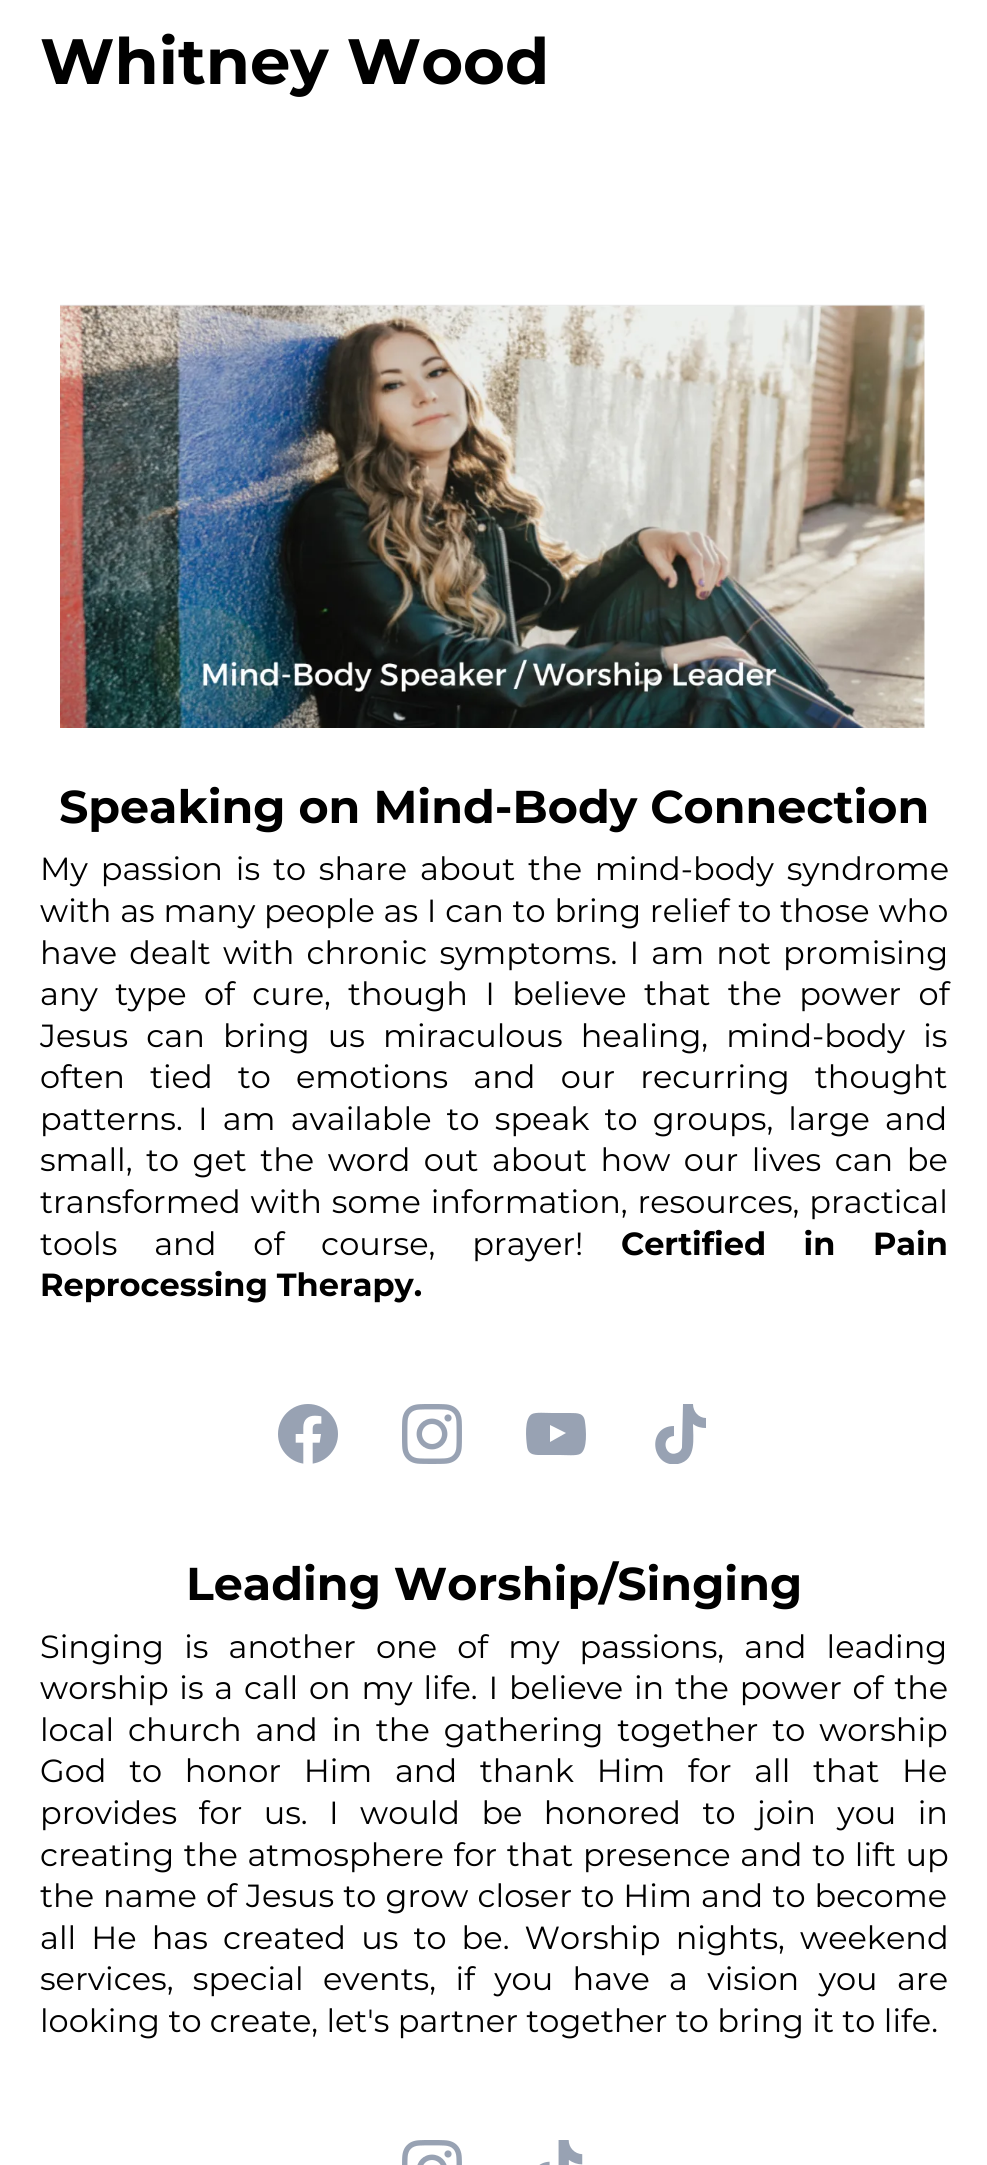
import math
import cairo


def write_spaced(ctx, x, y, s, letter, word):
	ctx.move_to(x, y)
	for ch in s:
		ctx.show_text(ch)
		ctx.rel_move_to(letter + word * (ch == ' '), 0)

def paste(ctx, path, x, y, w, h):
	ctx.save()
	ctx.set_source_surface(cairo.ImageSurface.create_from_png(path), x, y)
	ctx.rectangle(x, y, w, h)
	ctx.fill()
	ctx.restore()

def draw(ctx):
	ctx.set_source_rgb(1, 1, 1)
	ctx.paint()
	ctx.select_font_face('Montserrat', cairo.FONT_SLANT_NORMAL, cairo.FONT_WEIGHT_BOLD)
	ctx.set_font_size(64)
	ctx.set_source_rgb(0, 0, 0)
	ctx.move_to(40, 84)
	ctx.show_text('Whitney Wood')
	paste(ctx, 'media/1.png', 60, 304, 865, 424)
	ctx.set_font_size(46)
	ctx.move_to(59, 823)
	ctx.show_text('Speaking on Mind-Body Connection')
	ctx.select_font_face('Montserrat')
	ctx.set_font_size(32)
	write_spaced(ctx, 40, 880, 'My passion is to share about the mind-body syndrome', 0, 4.5)
	write_spaced(ctx, 40, 922, 'with as many people as I can to bring relief to those who', 0, 0.4)
	write_spaced(ctx, 40, 964, 'have dealt with chronic symptoms. I am not promising', 0, 3.75)
	write_spaced(ctx, 40, 1005, 'any type of cure, though I believe that the power of', 0, 9)
	write_spaced(ctx, 40, 1047, 'Jesus can bring us miraculous healing, mind-body is', 0, 9.75)
	write_spaced(ctx, 40, 1088, 'often tied to emotions and our recurring thought', 0, 16.75)
	write_spaced(ctx, 40, 1130, 'patterns. I am available to speak to groups, large and', 0, 6.75)
	write_spaced(ctx, 40, 1171, 'small, to get the word out about how our lives can be', 0, 5.1)
	write_spaced(ctx, 40, 1213, 'transformed with some information, resources, practical', 0, 1.5)
	write_spaced(ctx, 40, 1255, 'tools and of course, prayer!', 0, 28.5)
	ctx.select_font_face('Montserrat', cairo.FONT_SLANT_NORMAL, cairo.FONT_WEIGHT_BOLD)
	write_spaced(ctx, 621, 1255, 'Certified in Pain', 0, 28.5)
	ctx.move_to(40, 1296)
	ctx.show_text('Reprocessing Therapy.')
	paste(ctx, 'media/2.png', 278, 1404, 60, 60)
	paste(ctx, 'media/3.png', 402, 1404, 60, 60)
	ctx.set_source_rgb(0.596, 0.635, 0.702)
	ctx.new_path()
	ctx.move_to(585, 1422)
	ctx.curve_to(584, 1413, 578, 1413, 570, 1413)
	ctx.line_to(552, 1413)
	ctx.curve_to(546, 1413, 536, 1412, 532, 1414)
	ctx.curve_to(524, 1418, 526, 1439, 527, 1446)
	ctx.curve_to(528, 1456, 536, 1455, 544, 1455)
	ctx.line_to(560, 1455)
	ctx.curve_to(566, 1455, 576, 1456, 580, 1454)
	ctx.curve_to(588, 1450, 586, 1429, 585, 1422)
	ctx.close_path()
	ctx.move_to(550, 1442)
	ctx.line_to(550, 1425)
	ctx.line_to(566, 1433)
	ctx.close_path()
	ctx.fill()
	ctx.save()
	ctx.rectangle(650, 1404, 60, 60)
	ctx.clip()
	ctx.new_path()
	ctx.move_to(693, 1404)
	ctx.line_to(683, 1404)
	ctx.line_to(682, 1447)
	ctx.curve_to(682, 1449, 680, 1452, 677, 1453)
	ctx.curve_to(665, 1458, 660, 1437, 674, 1436)
	ctx.line_to(674, 1426)
	ctx.curve_to(646, 1426, 651, 1469, 678, 1464)
	ctx.curve_to(697, 1460, 693, 1438, 693, 1424)
	ctx.curve_to(697, 1427, 701, 1428, 706, 1428)
	ctx.line_to(706, 1418)
	ctx.curve_to(699, 1418, 693, 1412, 693, 1404)
	ctx.close_path()
	ctx.fill()
	ctx.restore()
	ctx.set_font_size(46)
	ctx.set_source_rgb(0, 0, 0)
	ctx.move_to(186, 1600)
	ctx.show_text('Leading Worship/Singing')
	ctx.select_font_face('Montserrat')
	ctx.set_font_size(32)
	write_spaced(ctx, 40, 1658, 'Singing is another one of my passions, and leading', 0, 11.75)
	write_spaced(ctx, 40, 1699, 'worship is a call on my life. I believe in the power of the', 0, 2.4)
	write_spaced(ctx, 40, 1741, 'local church and in the gathering together to worship', 0, 5.5)
	write_spaced(ctx, 40, 1782, 'God to honor Him and thank Him for all that He', 0, 14.25)
	write_spaced(ctx, 40, 1824, 'provides for us. I would be honored to join you in', 0, 13)
	write_spaced(ctx, 40, 1866, 'creating the atmosphere for that presence and to lift up', 0, 1.25)
	write_spaced(ctx, 40, 1907, 'the name of Jesus to grow closer to Him and to become', 0, 0.75)
	write_spaced(ctx, 40, 1949, 'all He has created us to be. Worship nights, weekend', 0, 6.75)
	write_spaced(ctx, 40, 1990, 'services, special events, if you have a vision you are', 0, 11)
	ctx.move_to(40, 2032)
	ctx.show_text('looking to create, let\'s partner together to bring it to life.')
	paste(ctx, 'media/4.png', 402, 2140, 60, 25)
	paste(ctx, 'media/5.png', 539, 2140, 44, 25)


surface = cairo.ImageSurface(cairo.FORMAT_RGB24, 987, 2165)
ctx = cairo.Context(surface)
options = cairo.FontOptions()
options.set_hint_metrics(cairo.HINT_METRICS_OFF)
options.set_hint_style(cairo.HINT_STYLE_NONE)
ctx.set_font_options(options)
ctx.set_miter_limit(4)
draw(ctx)
surface.write_to_png('image.png')
